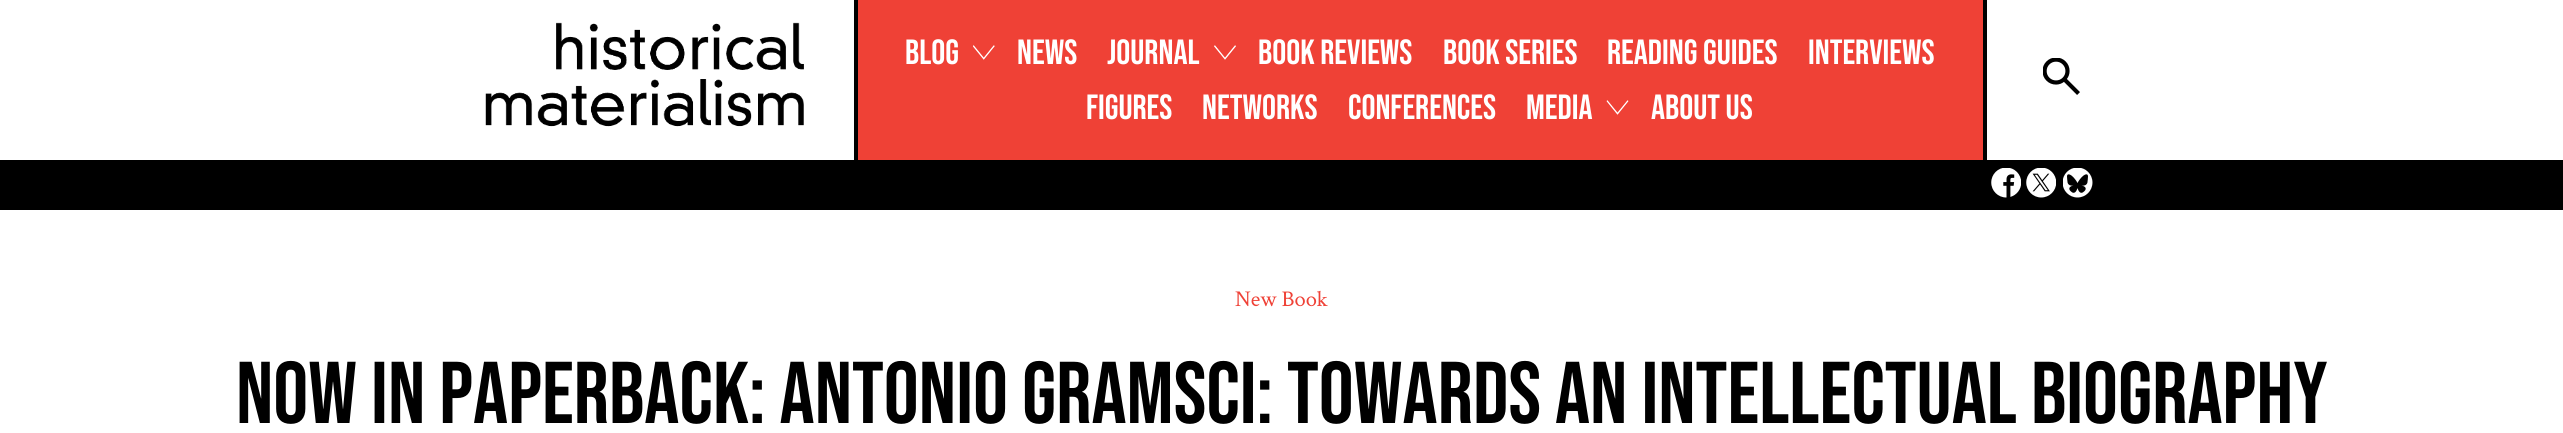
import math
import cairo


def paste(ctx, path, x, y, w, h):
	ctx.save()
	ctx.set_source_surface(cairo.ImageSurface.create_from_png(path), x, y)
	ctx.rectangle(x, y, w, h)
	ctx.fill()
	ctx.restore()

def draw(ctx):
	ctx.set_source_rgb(1, 1, 1)
	ctx.paint()
	paste(ctx, 'media/1.png', 485, 22, 319, 105)
	ctx.set_source_rgb(0.937, 0.255, 0.212)
	ctx.rectangle(858, 0, 1125, 160)
	ctx.fill()
	ctx.set_source_rgb(0, 0, 0)
	ctx.rectangle(1983, 0, 4, 160)
	ctx.rectangle(854, 0, 4, 160)
	ctx.fill()
	ctx.select_font_face('Bebas Neue')
	ctx.set_font_size(35)
	ctx.set_source_rgb(1, 1, 1)
	ctx.move_to(905, 64)
	ctx.show_text('BLOG')
	paste(ctx, 'media/2.png', 973, 45, 22, 15)
	ctx.move_to(1017, 64)
	ctx.show_text('NEWS')
	ctx.move_to(1107, 64)
	ctx.show_text('JOURNAL')
	paste(ctx, 'media/3.png', 1214, 45, 22, 15)
	for x, y, s in [
		(1258, 64, 'BOOK REVIEWS'),
		(1443, 64, 'BOOK SERIES'),
		(1607, 64, 'READING GUIDES'),
		(1808, 64, 'INTERVIEWS'),
		(1086, 119, 'FIGURES'),
		(1202, 119, 'NETWORKS'),
		(1348, 119, 'CONFERENCES'),
		(1526, 119, 'MEDIA'),
	]:
		ctx.move_to(x, y)
		ctx.show_text(s)
	paste(ctx, 'media/4.png', 1606, 100, 23, 15)
	ctx.move_to(1651, 119)
	ctx.show_text('ABOUT US')
	paste(ctx, 'media/5.png', 2043, 58, 37, 37)
	ctx.set_source_rgb(0, 0, 0)
	ctx.rectangle(0, 160, 2563, 50)
	ctx.fill()
	paste(ctx, 'media/6.png', 1991, 168, 30, 30)
	paste(ctx, 'media/7.png', 2026, 168, 30, 30)
	paste(ctx, 'media/8.png', 2063, 168, 30, 30)
	ctx.select_font_face('Crimson Text')
	ctx.set_font_size(22.5)
	ctx.set_source_rgb(0.937, 0.255, 0.212)
	ctx.move_to(1235, 306)
	ctx.show_text('New Book')
	ctx.select_font_face('Bebas Neue')
	ctx.set_font_size(87.5)
	ctx.set_source_rgb(0, 0, 0)
	ctx.move_to(236, 423)
	ctx.show_text('NOW IN PAPERBACK: ANTONIO GRAMSCI: TOWARDS AN INTELLECTUAL BIOGRAPHY')


surface = cairo.ImageSurface(cairo.FORMAT_RGB24, 2563, 433)
ctx = cairo.Context(surface)
options = cairo.FontOptions()
options.set_hint_metrics(cairo.HINT_METRICS_OFF)
options.set_hint_style(cairo.HINT_STYLE_NONE)
ctx.set_font_options(options)
ctx.set_miter_limit(4)
draw(ctx)
surface.write_to_png('image.png')
